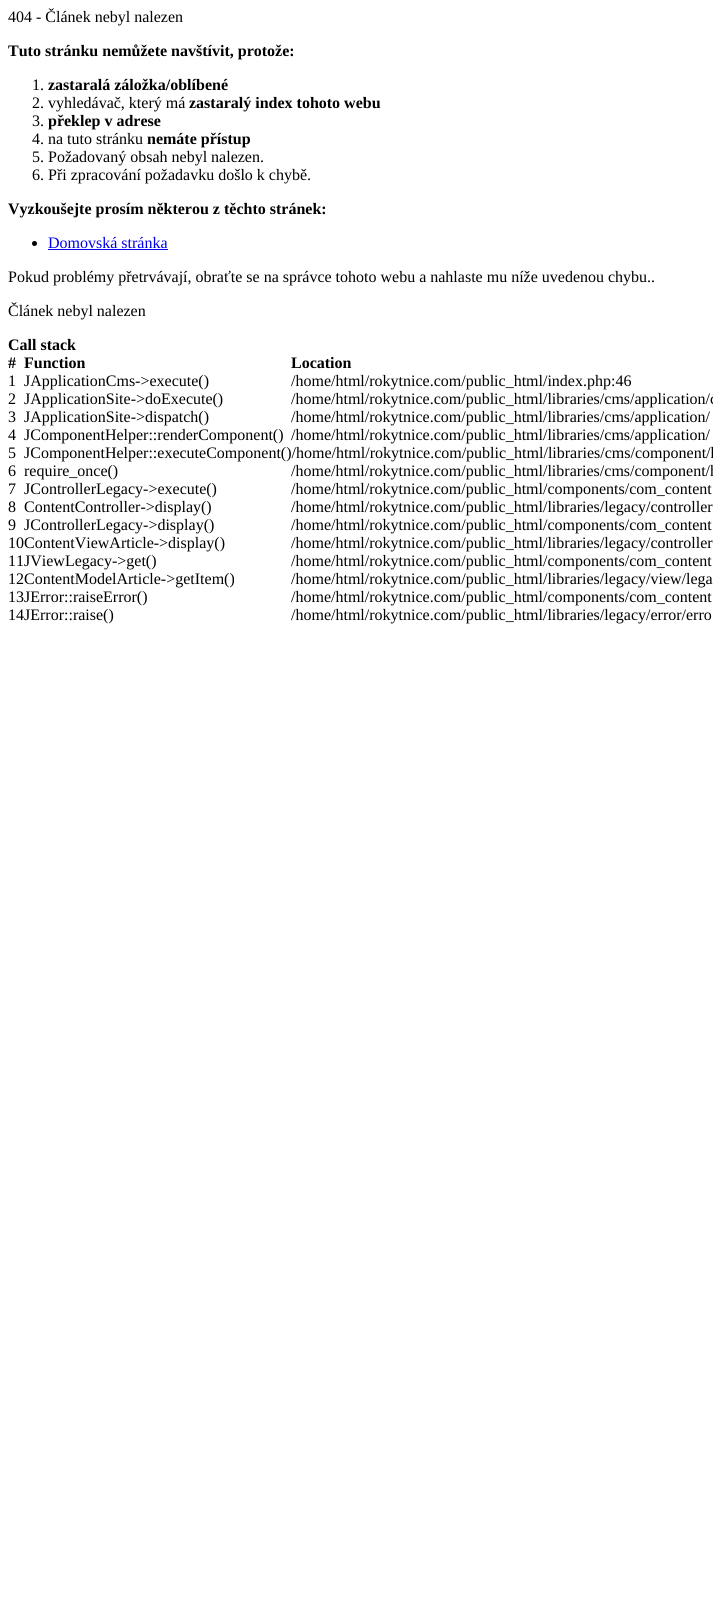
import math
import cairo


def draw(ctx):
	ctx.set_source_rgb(1, 1, 1)
	ctx.paint()
	ctx.select_font_face('Liberation Serif')
	ctx.set_font_size(16)
	ctx.set_source_rgb(0, 0, 0)
	ctx.move_to(8, 22)
	ctx.show_text('404 - Článek nebyl nalezen')
	ctx.select_font_face('Liberation Serif', cairo.FONT_SLANT_NORMAL, cairo.FONT_WEIGHT_BOLD)
	ctx.move_to(8, 56)
	ctx.show_text('Tuto stránku nemůžete navštívit, protože:')
	ctx.select_font_face('Liberation Serif')
	ctx.move_to(32, 90)
	ctx.show_text('1.')
	ctx.select_font_face('Liberation Serif', cairo.FONT_SLANT_NORMAL, cairo.FONT_WEIGHT_BOLD)
	ctx.move_to(48, 90)
	ctx.show_text('zastaralá záložka/oblíbené')
	ctx.select_font_face('Liberation Serif')
	ctx.move_to(32, 108)
	ctx.show_text('2. vyhledávač, který má')
	ctx.select_font_face('Liberation Serif', cairo.FONT_SLANT_NORMAL, cairo.FONT_WEIGHT_BOLD)
	ctx.move_to(189, 108)
	ctx.show_text('zastaralý index tohoto webu')
	ctx.select_font_face('Liberation Serif')
	ctx.move_to(32, 126)
	ctx.show_text('3.')
	ctx.select_font_face('Liberation Serif', cairo.FONT_SLANT_NORMAL, cairo.FONT_WEIGHT_BOLD)
	ctx.move_to(48, 126)
	ctx.show_text('překlep v adrese')
	ctx.select_font_face('Liberation Serif')
	ctx.move_to(32, 144)
	ctx.show_text('4. na tuto stránku')
	ctx.select_font_face('Liberation Serif', cairo.FONT_SLANT_NORMAL, cairo.FONT_WEIGHT_BOLD)
	ctx.move_to(147, 144)
	ctx.show_text('nemáte přístup')
	ctx.select_font_face('Liberation Serif')
	ctx.move_to(32, 162)
	ctx.show_text('5. Požadovaný obsah nebyl nalezen.')
	ctx.move_to(32, 180)
	ctx.show_text('6. Při zpracování požadavku došlo k chybě.')
	ctx.select_font_face('Liberation Serif', cairo.FONT_SLANT_NORMAL, cairo.FONT_WEIGHT_BOLD)
	ctx.move_to(8, 214)
	ctx.show_text('Vyzkoušejte prosím některou z těchto stránek:')
	ctx.new_path()
	ctx.arc(34.5, 243.5, 2.5, 0, 2 * math.pi)
	ctx.fill()
	ctx.select_font_face('Liberation Serif')
	ctx.set_source_rgb(0, 0, 0.933)
	ctx.move_to(48, 248)
	ctx.show_text('Domovská stránka')
	ctx.rectangle(48, 249, 120, 1)
	ctx.fill()
	ctx.set_source_rgb(0, 0, 0)
	ctx.move_to(8, 282)
	ctx.show_text('Pokud problémy přetrvávají, obraťte se na správce tohoto webu a nahlaste mu níže uvedenou chybu..')
	ctx.move_to(8, 316)
	ctx.show_text('Článek nebyl nalezen')
	ctx.select_font_face('Liberation Serif', cairo.FONT_SLANT_NORMAL, cairo.FONT_WEIGHT_BOLD)
	for x, y, s in [
		(8, 350, 'Call stack'),
		(8, 368, '#'),
		(24, 368, 'Function'),
		(291, 368, 'Location'),
	]:
		ctx.move_to(x, y)
		ctx.show_text(s)
	ctx.select_font_face('Liberation Serif')
	for x, y, s in [
		(8, 386, '1'),
		(24, 386, 'JApplicationCms->execute()'),
		(291, 386, '/home/html/rokytnice.com/public_html/index.php:46'),
		(8, 404, '2'),
		(24, 404, 'JApplicationSite->doExecute()'),
		(291, 404, '/home/html/rokytnice.com/public_html/libraries/cms/application/c'),
		(8, 422, '3'),
		(24, 422, 'JApplicationSite->dispatch()'),
		(291, 422, '/home/html/rokytnice.com/public_html/libraries/cms/application/'),
		(8, 440, '4'),
		(24, 440, 'JComponentHelper::renderComponent()'),
		(291, 440, '/home/html/rokytnice.com/public_html/libraries/cms/application/'),
		(8, 458, '5'),
		(24, 458, 'JComponentHelper::executeComponent()/home/html/rokytnice.com/public_html/libraries/cms/component/h'),
		(8, 476, '6'),
		(24, 476, 'require_once()'),
		(291, 476, '/home/html/rokytnice.com/public_html/libraries/cms/component/h'),
		(8, 494, '7'),
		(24, 494, 'JControllerLegacy->execute()'),
		(291, 494, '/home/html/rokytnice.com/public_html/components/com_content'),
		(8, 512, '8'),
		(24, 512, 'ContentController->display()'),
		(291, 512, '/home/html/rokytnice.com/public_html/libraries/legacy/controller'),
		(8, 530, '9'),
		(24, 530, 'JControllerLegacy->display()'),
		(291, 530, '/home/html/rokytnice.com/public_html/components/com_content'),
		(8, 548, '10ContentViewArticle->display()'),
		(291, 548, '/home/html/rokytnice.com/public_html/libraries/legacy/controller'),
		(8, 566, '11JViewLegacy->get()'),
		(291, 566, '/home/html/rokytnice.com/public_html/components/com_content'),
		(8, 584, '12ContentModelArticle->getItem()'),
		(291, 584, '/home/html/rokytnice.com/public_html/libraries/legacy/view/lega'),
		(8, 602, '13JError::raiseError()'),
		(291, 602, '/home/html/rokytnice.com/public_html/components/com_content'),
		(8, 620, '14JError::raise()'),
		(291, 620, '/home/html/rokytnice.com/public_html/libraries/legacy/error/erro'),
	]:
		ctx.move_to(x, y)
		ctx.show_text(s)


surface = cairo.ImageSurface(cairo.FORMAT_RGB24, 713, 1597)
ctx = cairo.Context(surface)
options = cairo.FontOptions()
options.set_hint_metrics(cairo.HINT_METRICS_OFF)
options.set_hint_style(cairo.HINT_STYLE_NONE)
ctx.set_font_options(options)
ctx.set_miter_limit(4)
draw(ctx)
surface.write_to_png('image.png')
